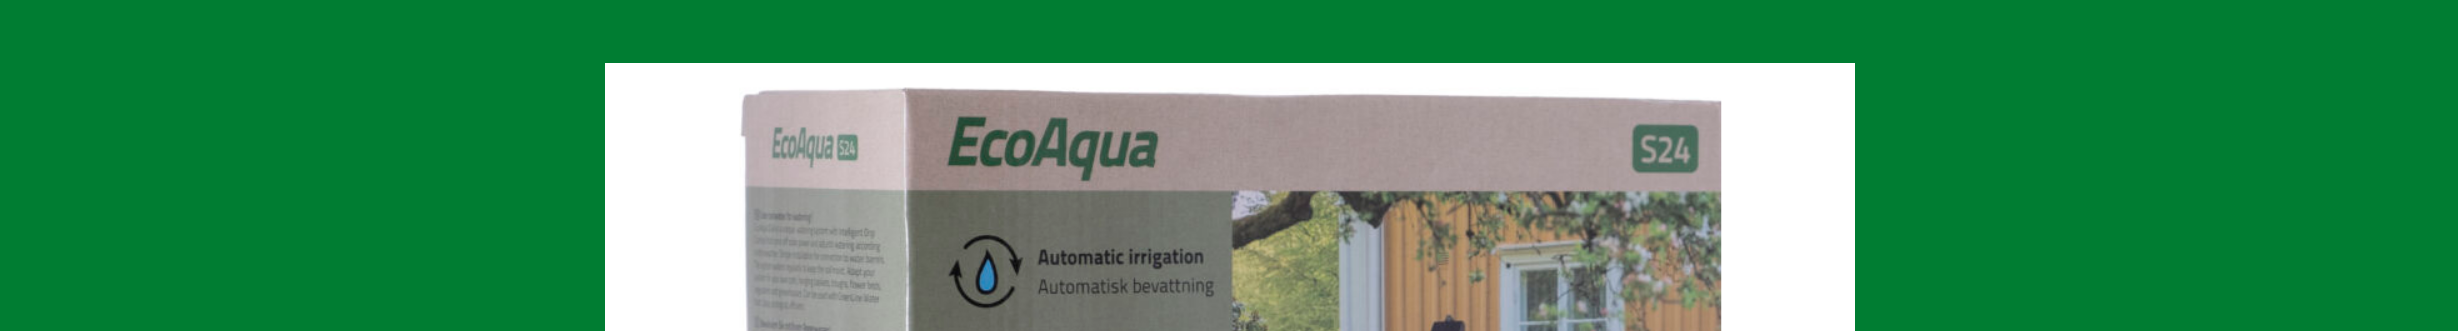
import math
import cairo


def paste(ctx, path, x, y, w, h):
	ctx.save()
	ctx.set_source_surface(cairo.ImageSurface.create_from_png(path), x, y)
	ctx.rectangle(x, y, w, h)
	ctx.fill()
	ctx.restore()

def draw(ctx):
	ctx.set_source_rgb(0, 0.49, 0.196)
	ctx.paint()
	ctx.set_source_rgb(1, 1, 1)
	ctx.rectangle(605, 63, 1250, 268)
	ctx.fill()
	paste(ctx, 'media/1.png', 739, 87, 983, 244)


surface = cairo.ImageSurface(cairo.FORMAT_RGB24, 2458, 331)
ctx = cairo.Context(surface)
options = cairo.FontOptions()
options.set_hint_metrics(cairo.HINT_METRICS_OFF)
options.set_hint_style(cairo.HINT_STYLE_NONE)
ctx.set_font_options(options)
ctx.set_miter_limit(4)
draw(ctx)
surface.write_to_png('image.png')
